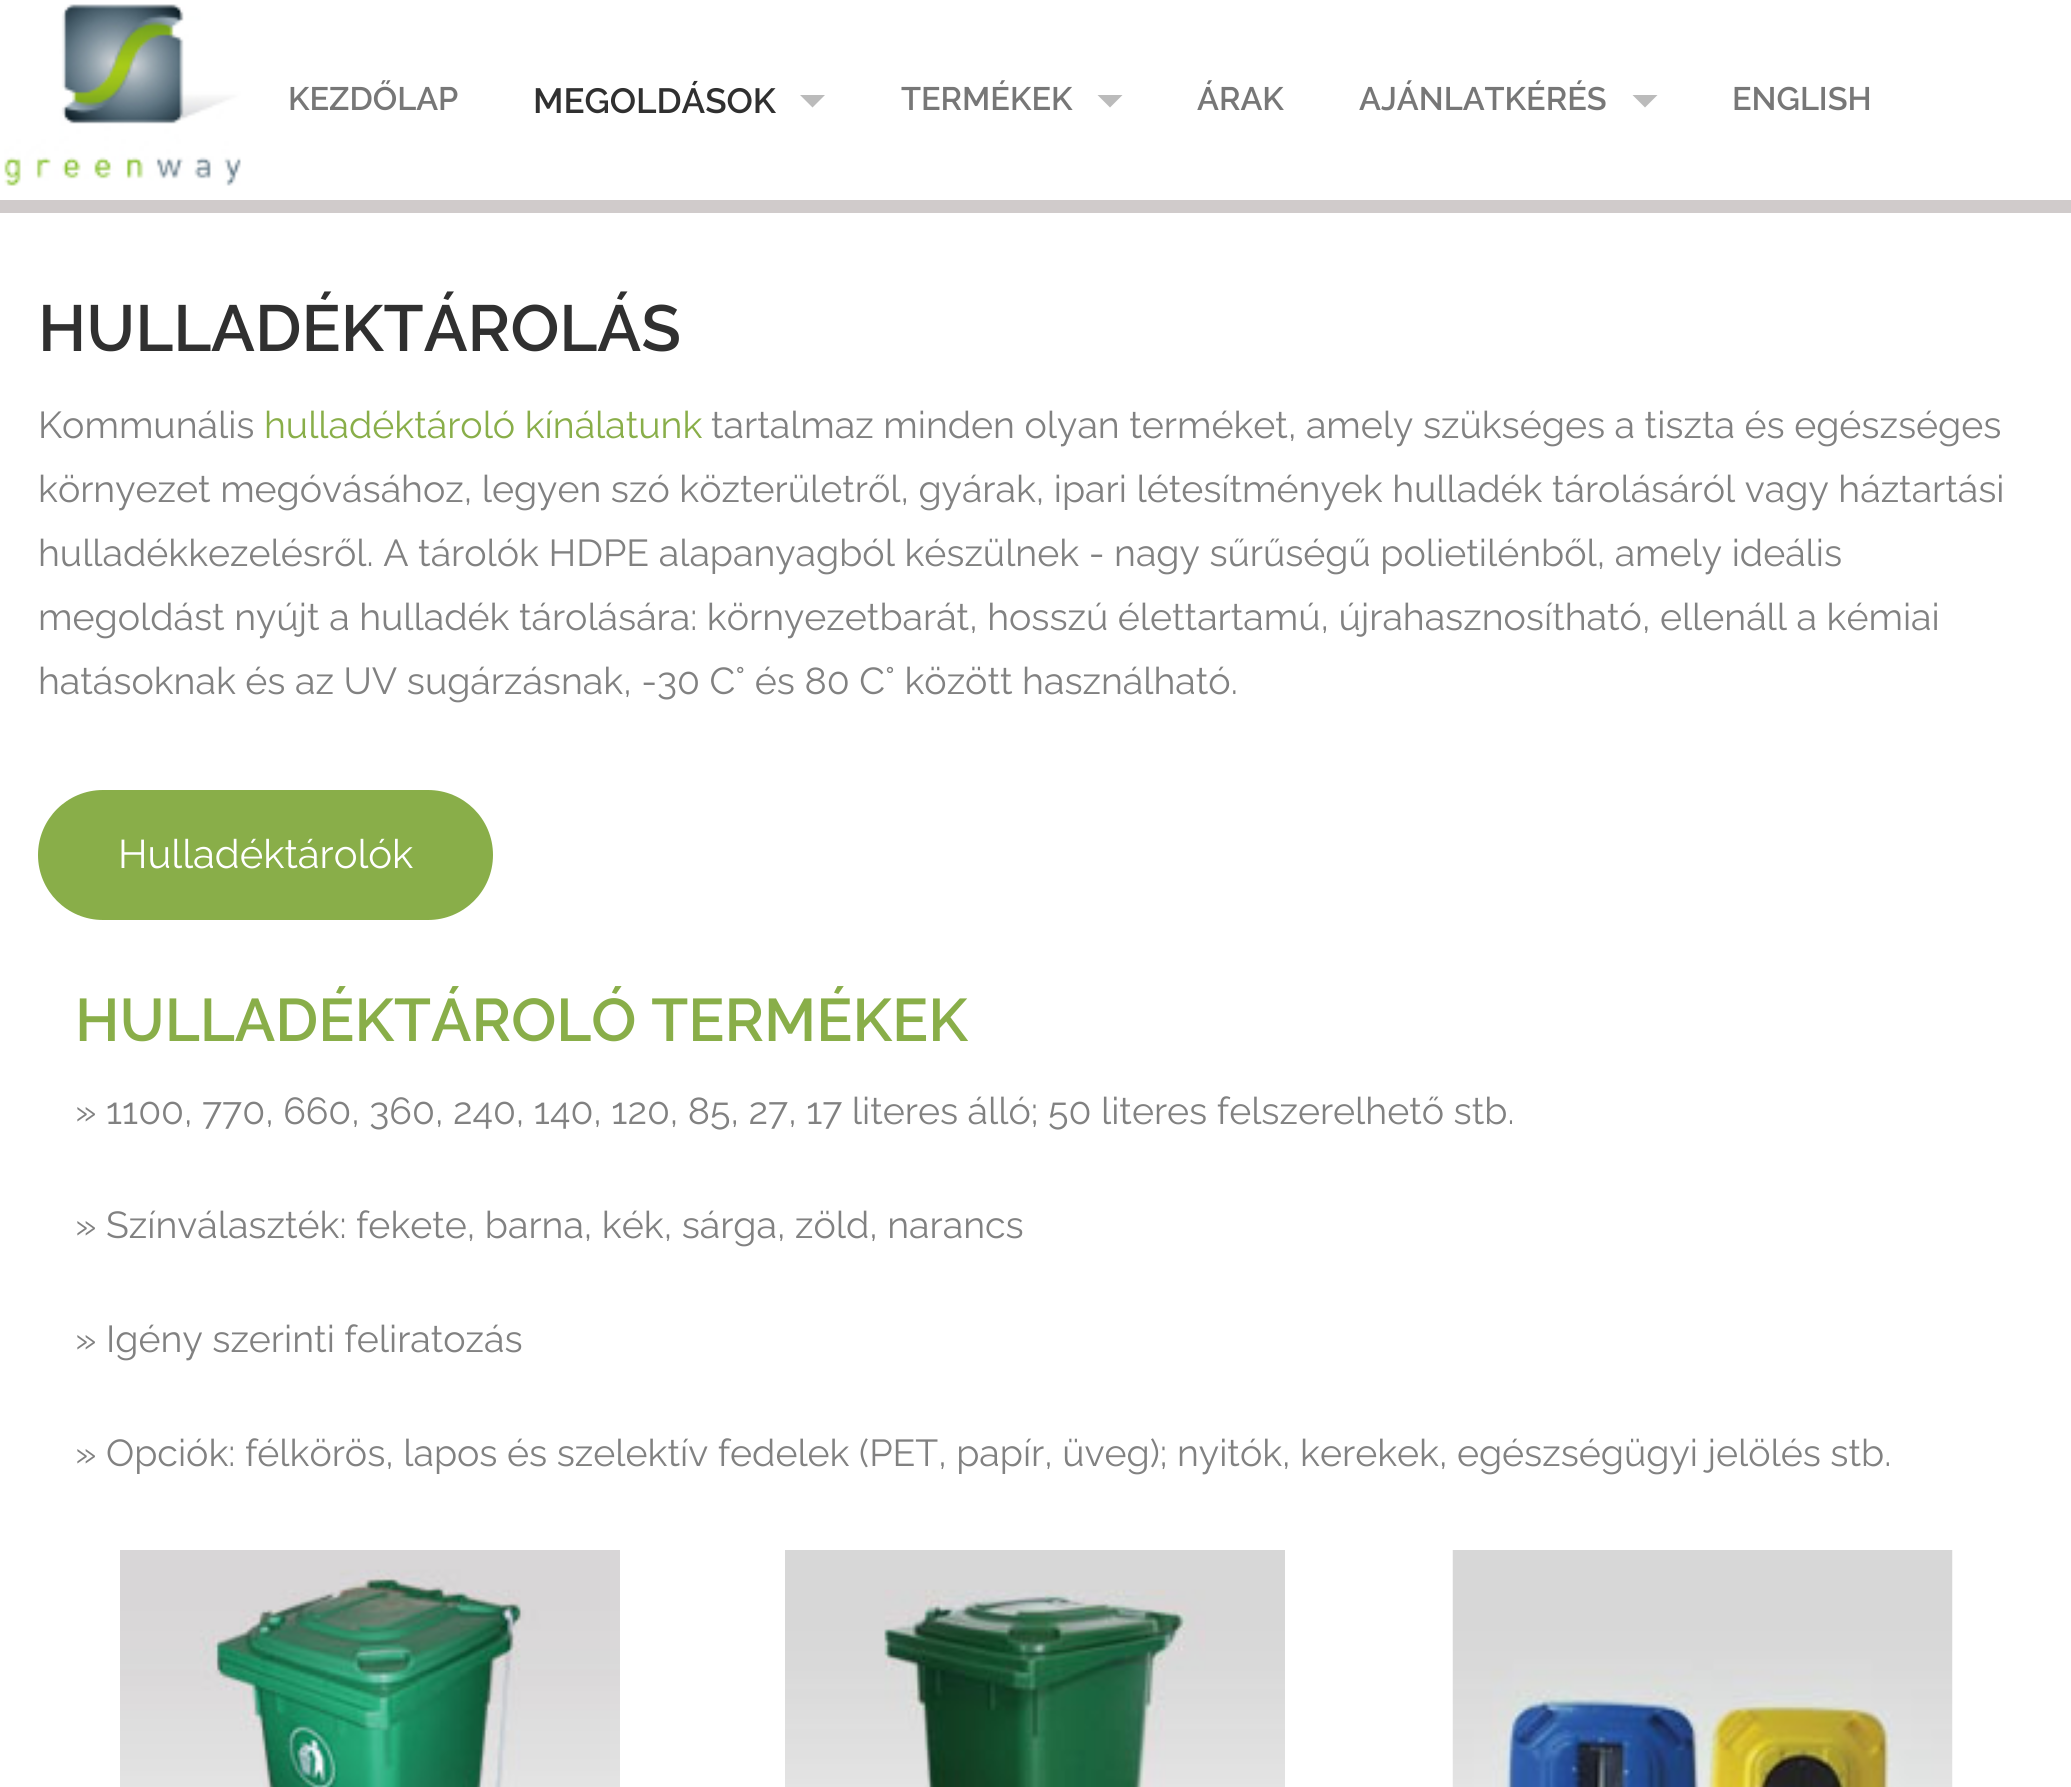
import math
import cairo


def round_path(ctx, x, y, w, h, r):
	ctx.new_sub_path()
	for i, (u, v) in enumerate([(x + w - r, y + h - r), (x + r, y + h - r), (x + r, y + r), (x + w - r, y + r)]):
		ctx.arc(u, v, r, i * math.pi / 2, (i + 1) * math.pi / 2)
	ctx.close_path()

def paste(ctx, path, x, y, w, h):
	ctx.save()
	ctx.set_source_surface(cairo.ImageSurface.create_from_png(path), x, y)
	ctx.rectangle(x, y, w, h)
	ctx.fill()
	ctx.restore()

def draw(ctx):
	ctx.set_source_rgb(1, 1, 1)
	ctx.paint()
	paste(ctx, 'media/1.png', 4, 4, 237, 182)
	ctx.select_font_face('Raleway SemiBold')
	ctx.set_font_size(32.5)
	ctx.set_source_rgb(0.467, 0.467, 0.467)
	ctx.move_to(288, 110)
	ctx.show_text('KEZDŐLAP')
	ctx.set_font_size(35)
	ctx.set_source_rgb(0.188, 0.188, 0.188)
	ctx.move_to(533, 113)
	ctx.show_text('MEGOLDÁSOK')
	ctx.set_source_rgb(0.733, 0.733, 0.733)
	ctx.new_path()
	ctx.move_to(800, 95)
	ctx.line_to(825, 95)
	ctx.line_to(812.5, 107.5)
	ctx.close_path()
	ctx.fill()
	ctx.set_font_size(32.5)
	ctx.set_source_rgb(0.467, 0.467, 0.467)
	ctx.move_to(901, 110)
	ctx.show_text('TERMÉKEK')
	ctx.set_source_rgb(0.733, 0.733, 0.733)
	ctx.new_path()
	ctx.move_to(1097.5, 95)
	ctx.line_to(1122.5, 95)
	ctx.line_to(1110, 107.5)
	ctx.close_path()
	ctx.fill()
	ctx.set_source_rgb(0.467, 0.467, 0.467)
	ctx.move_to(1197, 110)
	ctx.show_text('ÁRAK')
	ctx.move_to(1359, 110)
	ctx.show_text('AJÁNLATKÉRÉS')
	ctx.set_source_rgb(0.733, 0.733, 0.733)
	ctx.new_path()
	ctx.move_to(1632.5, 95)
	ctx.line_to(1657.5, 95)
	ctx.line_to(1645, 107.5)
	ctx.close_path()
	ctx.fill()
	ctx.set_source_rgb(0.467, 0.467, 0.467)
	ctx.move_to(1732, 110)
	ctx.show_text('ENGLISH')
	ctx.set_source_rgb(0.816, 0.796, 0.796)
	ctx.rectangle(0, 200, 2071, 13)
	ctx.fill()
	ctx.set_font_size(65)
	ctx.set_source_rgb(0.188, 0.188, 0.188)
	ctx.move_to(38, 351)
	ctx.show_text('HULLADÉKTÁROLÁS')
	ctx.select_font_face('Raleway')
	ctx.set_font_size(37.5)
	ctx.set_source_rgb(0.506, 0.506, 0.506)
	ctx.move_to(38, 438)
	ctx.show_text('Kommunális')
	ctx.set_source_rgb(0.537, 0.682, 0.286)
	ctx.move_to(264, 438)
	ctx.show_text('hulladéktároló kínálatunk')
	ctx.set_source_rgb(0.506, 0.506, 0.506)
	for x, y, s in [
		(711, 438, 'tartalmaz minden olyan terméket, amely szükséges a tiszta és egészséges'),
		(38, 502, 'környezet megóvásához, legyen szó közterületről, gyárak, ipari létesítmények hulladék tárolásáról vagy háztartási'),
		(38, 566, 'hulladékkezelésről. A tárolók HDPE alapanyagból készülnek - nagy sűrűségű polietilénből, amely ideális'),
		(38, 630, 'megoldást nyújt a hulladék tárolására: környezetbarát, hosszú élettartamú, újrahasznosítható, ellenáll a kémiai'),
		(38, 694, 'hatásoknak és az UV sugárzásnak, -30 C° és 80 C° között használható.'),
	]:
		ctx.move_to(x, y)
		ctx.show_text(s)
	ctx.set_source_rgb(0.537, 0.682, 0.286)
	round_path(ctx, 38, 790, 455, 130, 65)
	ctx.fill()
	ctx.set_font_size(40)
	ctx.set_source_rgb(1, 1, 1)
	ctx.move_to(118, 868)
	ctx.show_text('Hulladéktárolók')
	ctx.select_font_face('Raleway SemiBold')
	ctx.set_font_size(60)
	ctx.set_source_rgb(0.537, 0.682, 0.286)
	ctx.move_to(75, 1041)
	ctx.show_text('HULLADÉKTÁROLÓ TERMÉKEK')
	ctx.select_font_face('Raleway')
	ctx.set_font_size(37.5)
	ctx.set_source_rgb(0.506, 0.506, 0.506)
	for x, y, s in [
		(75, 1124, '» 1100, 770, 660, 360, 240, 140, 120, 85, 27, 17 literes álló; 50 literes felszerelhető stb.'),
		(75, 1238, '» Színválaszték: fekete, barna, kék, sárga, zöld, narancs'),
		(75, 1352, '» Igény szerinti feliratozás'),
		(75, 1466, '» Opciók: félkörös, lapos és szelektív fedelek (PET, papír, üveg); nyitók, kerekek, egészségügyi jelölés stb.'),
	]:
		ctx.move_to(x, y)
		ctx.show_text(s)
	paste(ctx, 'media/2.png', 120, 1550, 500, 237)
	paste(ctx, 'media/3.png', 785, 1550, 500, 237)
	paste(ctx, 'media/4.png', 1452, 1550, 501, 237)


surface = cairo.ImageSurface(cairo.FORMAT_RGB24, 2071, 1787)
ctx = cairo.Context(surface)
options = cairo.FontOptions()
options.set_hint_metrics(cairo.HINT_METRICS_OFF)
options.set_hint_style(cairo.HINT_STYLE_NONE)
ctx.set_font_options(options)
ctx.set_miter_limit(4)
draw(ctx)
surface.write_to_png('image.png')
